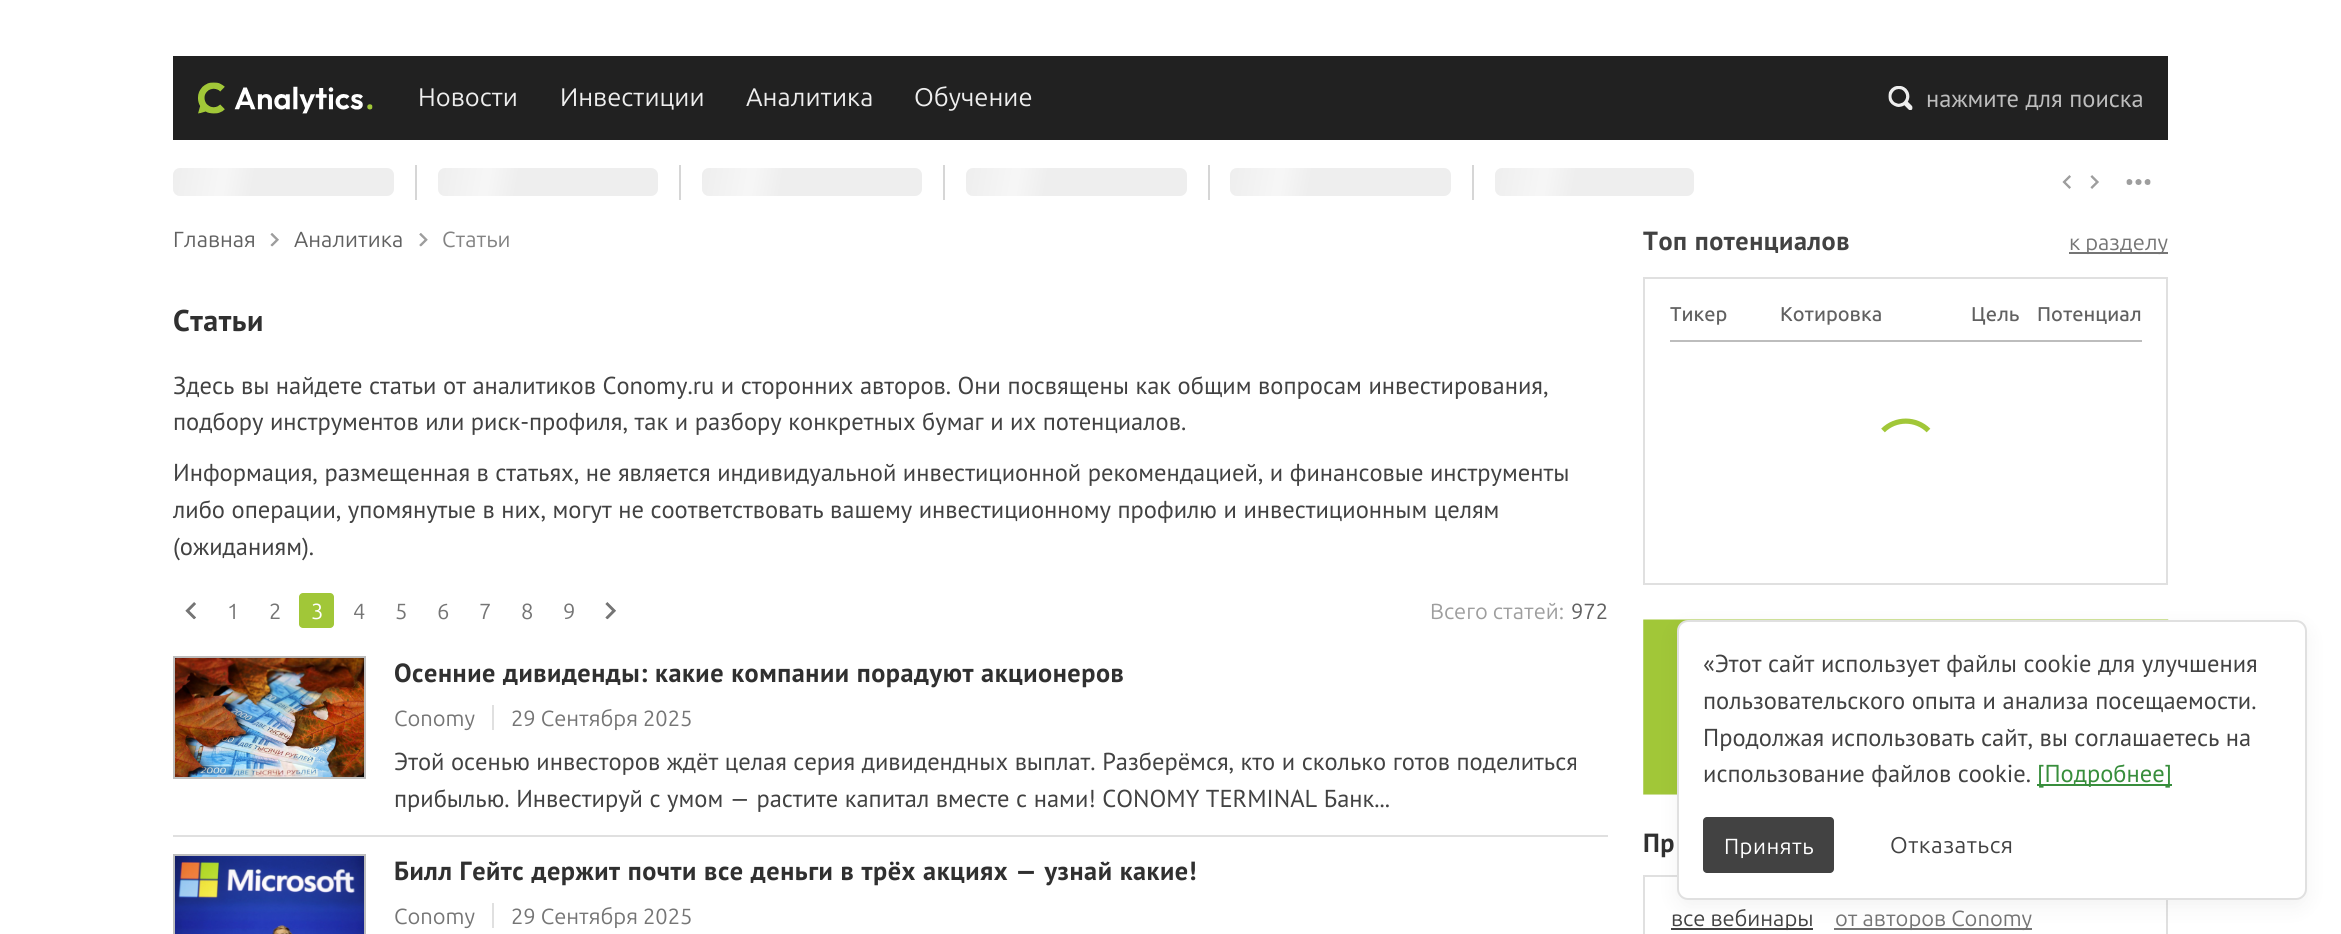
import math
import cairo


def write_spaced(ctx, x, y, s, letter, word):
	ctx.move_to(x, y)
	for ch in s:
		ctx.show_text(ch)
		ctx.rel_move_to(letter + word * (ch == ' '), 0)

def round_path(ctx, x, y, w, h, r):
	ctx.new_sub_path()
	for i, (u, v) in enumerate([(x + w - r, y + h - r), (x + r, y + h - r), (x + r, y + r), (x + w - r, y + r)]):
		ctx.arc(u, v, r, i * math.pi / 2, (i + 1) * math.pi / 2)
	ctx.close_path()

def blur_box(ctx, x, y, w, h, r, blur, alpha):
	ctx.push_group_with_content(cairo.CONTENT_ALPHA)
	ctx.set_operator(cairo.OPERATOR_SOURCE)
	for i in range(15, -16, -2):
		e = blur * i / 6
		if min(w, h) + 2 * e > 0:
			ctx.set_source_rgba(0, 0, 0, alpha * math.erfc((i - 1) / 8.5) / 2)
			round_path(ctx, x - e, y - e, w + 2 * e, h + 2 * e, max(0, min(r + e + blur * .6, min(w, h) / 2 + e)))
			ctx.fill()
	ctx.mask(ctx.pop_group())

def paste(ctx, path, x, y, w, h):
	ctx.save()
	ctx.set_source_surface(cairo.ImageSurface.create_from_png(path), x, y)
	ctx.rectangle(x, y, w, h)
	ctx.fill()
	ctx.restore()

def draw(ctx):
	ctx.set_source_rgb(1, 1, 1)
	ctx.paint()
	ctx.set_source_rgb(0.129, 0.129, 0.129)
	ctx.rectangle(173, 56, 1995, 84)
	ctx.fill()
	paste(ctx, 'media/1.png', 198, 82, 175, 32)
	ctx.select_font_face('Ubuntu')
	ctx.set_font_size(25.5)
	ctx.set_source_rgb(0.933, 0.933, 0.933)
	for x, y, s in [
		(418, 106, 'Новости'),
		(560, 106, 'Инвестиции'),
		(746, 106, 'Аналитика'),
		(914, 106, 'Обучение'),
	]:
		ctx.move_to(x, y)
		ctx.show_text(s)
	paste(ctx, 'media/2.png', 1888, 86, 25, 24)
	ctx.select_font_face('PT Sans')
	ctx.set_font_size(24.5)
	ctx.set_source_rgb(0.741, 0.741, 0.741)
	ctx.move_to(1926, 107)
	ctx.show_text('нажмите для поиска')
	ctx.set_source_rgb(0.839, 0.839, 0.839)
	ctx.rectangle(415, 165, 2, 35)
	ctx.fill()
	ctx.set_source_rgb(0.933, 0.933, 0.933)
	round_path(ctx, 173, 168, 221, 28, 7)
	ctx.fill()
	gradient = cairo.LinearGradient(167, 203, 267, 221)
	gradient.add_color_stop_rgba(0, 1, 1, 1, 0)
	gradient.add_color_stop_rgba(0.5, 1, 1, 1, 0.5)
	gradient.add_color_stop_rgba(0.8, 1, 1, 1, 0)
	ctx.set_source(gradient)
	ctx.new_path()
	ctx.move_to(180, 168)
	ctx.line_to(261, 168)
	ctx.line_to(261, 196)
	ctx.line_to(180, 196)
	ctx.curve_to(176, 196, 173, 193, 173, 189)
	ctx.line_to(173, 175)
	ctx.curve_to(173, 171, 176, 168, 180, 168)
	ctx.close_path()
	ctx.fill()
	ctx.set_source_rgb(0.839, 0.839, 0.839)
	ctx.rectangle(679, 165, 2, 35)
	ctx.fill()
	ctx.set_source_rgb(0.933, 0.933, 0.933)
	round_path(ctx, 438, 168, 220, 28, 7)
	ctx.fill()
	gradient = cairo.LinearGradient(431, 203, 531, 221)
	gradient.add_color_stop_rgba(0, 1, 1, 1, 0)
	gradient.add_color_stop_rgba(0.5, 1, 1, 1, 0.5)
	gradient.add_color_stop_rgba(0.8, 1, 1, 1, 0)
	ctx.set_source(gradient)
	ctx.new_path()
	ctx.move_to(445, 168)
	ctx.line_to(525, 168)
	ctx.line_to(525, 196)
	ctx.line_to(445, 196)
	ctx.curve_to(441, 196, 438, 193, 438, 189)
	ctx.line_to(438, 175)
	ctx.curve_to(438, 171, 441, 168, 445, 168)
	ctx.close_path()
	ctx.fill()
	ctx.set_source_rgb(0.839, 0.839, 0.839)
	ctx.rectangle(943, 165, 2, 35)
	ctx.fill()
	ctx.set_source_rgb(0.933, 0.933, 0.933)
	round_path(ctx, 702, 168, 220, 28, 7)
	ctx.fill()
	gradient = cairo.LinearGradient(696, 203, 795, 221)
	gradient.add_color_stop_rgba(0, 1, 1, 1, 0)
	gradient.add_color_stop_rgba(0.5, 1, 1, 1, 0.5)
	gradient.add_color_stop_rgba(0.8, 1, 1, 1, 0)
	ctx.set_source(gradient)
	ctx.new_path()
	ctx.move_to(709, 168)
	ctx.line_to(789, 168)
	ctx.line_to(789, 196)
	ctx.line_to(709, 196)
	ctx.curve_to(705, 196, 702, 193, 702, 189)
	ctx.line_to(702, 175)
	ctx.curve_to(702, 171, 705, 168, 709, 168)
	ctx.close_path()
	ctx.fill()
	ctx.set_source_rgb(0.839, 0.839, 0.839)
	ctx.rectangle(1208, 165, 2, 35)
	ctx.fill()
	ctx.set_source_rgb(0.933, 0.933, 0.933)
	round_path(ctx, 966, 168, 221, 28, 7)
	ctx.fill()
	gradient = cairo.LinearGradient(960, 203, 1060, 221)
	gradient.add_color_stop_rgba(0, 1, 1, 1, 0)
	gradient.add_color_stop_rgba(0.5, 1, 1, 1, 0.5)
	gradient.add_color_stop_rgba(0.8, 1, 1, 1, 0)
	ctx.set_source(gradient)
	ctx.new_path()
	ctx.move_to(973, 168)
	ctx.line_to(1054, 168)
	ctx.line_to(1054, 196)
	ctx.line_to(973, 196)
	ctx.curve_to(969, 196, 966, 193, 966, 189)
	ctx.line_to(966, 175)
	ctx.curve_to(966, 171, 969, 168, 973, 168)
	ctx.close_path()
	ctx.fill()
	ctx.set_source_rgb(0.839, 0.839, 0.839)
	ctx.rectangle(1472, 165, 2, 35)
	ctx.fill()
	ctx.set_source_rgb(0.933, 0.933, 0.933)
	round_path(ctx, 1230, 168, 221, 28, 7)
	ctx.fill()
	gradient = cairo.LinearGradient(1224, 203, 1324, 221)
	gradient.add_color_stop_rgba(0, 1, 1, 1, 0)
	gradient.add_color_stop_rgba(0.5, 1, 1, 1, 0.5)
	gradient.add_color_stop_rgba(0.8, 1, 1, 1, 0)
	ctx.set_source(gradient)
	ctx.new_path()
	ctx.move_to(1237, 168)
	ctx.line_to(1318, 168)
	ctx.line_to(1318, 196)
	ctx.line_to(1237, 196)
	ctx.curve_to(1233, 196, 1230, 193, 1230, 189)
	ctx.line_to(1230, 175)
	ctx.curve_to(1230, 171, 1233, 168, 1237, 168)
	ctx.close_path()
	ctx.fill()
	ctx.set_source_rgb(0.933, 0.933, 0.933)
	round_path(ctx, 1495, 168, 199, 28, 7)
	ctx.fill()
	gradient = cairo.LinearGradient(1488, 203, 1588, 221)
	gradient.add_color_stop_rgba(0, 1, 1, 1, 0)
	gradient.add_color_stop_rgba(0.5, 1, 1, 1, 0.5)
	gradient.add_color_stop_rgba(0.8, 1, 1, 1, 0)
	ctx.set_source(gradient)
	ctx.new_path()
	ctx.move_to(1502, 168)
	ctx.line_to(1582, 168)
	ctx.line_to(1582, 196)
	ctx.line_to(1502, 196)
	ctx.curve_to(1498, 196, 1495, 193, 1495, 189)
	ctx.line_to(1495, 175)
	ctx.curve_to(1495, 171, 1498, 168, 1502, 168)
	ctx.close_path()
	ctx.fill()
	paste(ctx, 'media/3.png', 2062, 175, 9, 14)
	paste(ctx, 'media/4.png', 2090, 175, 9, 14)
	paste(ctx, 'media/5.png', 2126, 179, 25, 6)
	ctx.select_font_face('Ubuntu')
	ctx.set_font_size(21.9)
	ctx.set_source_rgb(0.38, 0.38, 0.38)
	ctx.move_to(173, 247)
	ctx.show_text('Главная')
	paste(ctx, 'media/6.png', 270, 233, 9, 14)
	ctx.move_to(294, 247)
	ctx.show_text('Аналитика')
	paste(ctx, 'media/7.png', 419, 233, 9, 14)
	ctx.set_source_rgb(0.514, 0.514, 0.514)
	ctx.move_to(442, 247)
	ctx.show_text('Статьи')
	ctx.select_font_face('PT Sans', cairo.FONT_SLANT_NORMAL, cairo.FONT_WEIGHT_BOLD)
	ctx.set_font_size(30)
	ctx.set_source_rgb(0.188, 0.188, 0.188)
	write_spaced(ctx, 173, 331, 'Статьи', 0.5, 0)
	ctx.select_font_face('PT Sans')
	ctx.set_font_size(24.5)
	ctx.set_source_rgb(0.259, 0.259, 0.259)
	for x, y, s in [
		(173, 394, 'Здесь вы найдете статьи от аналитиков Conomy.ru и сторонних авторов. Они посвящены как общим вопросам инвестирования,'),
		(173, 430, 'подбору инструментов или риск-профиля, так и разбору конкретных бумаг и их потенциалов.'),
		(173, 481, 'Информация, размещенная в статьях, не является индивидуальной инвестиционной рекомендацией, и финансовые инструменты'),
		(173, 518, 'либо операции, упомянутые в них, могут не соответствовать вашему инвестиционному профилю и инвестиционным целям'),
		(173, 555, '(ожиданиям).'),
	]:
		ctx.move_to(x, y)
		ctx.show_text(s)
	paste(ctx, 'media/8.png', 185, 602, 11, 18)
	ctx.select_font_face('Ubuntu')
	ctx.set_font_size(21.9)
	ctx.set_source_rgb(0.459, 0.459, 0.459)
	ctx.move_to(227, 619)
	ctx.show_text('1')
	ctx.move_to(269, 619)
	ctx.show_text('2')
	ctx.set_source_rgb(0.631, 0.78, 0.22)
	round_path(ctx, 299, 593, 35, 35, 4)
	ctx.fill()
	ctx.set_source_rgb(1, 1, 1)
	ctx.move_to(311, 619)
	ctx.show_text('3')
	ctx.set_source_rgb(0.459, 0.459, 0.459)
	for x, y, s in [
		(353, 619, '4'),
		(395, 619, '5'),
		(437, 619, '6'),
		(479, 619, '7'),
		(521, 619, '8'),
		(563, 619, '9'),
	]:
		ctx.move_to(x, y)
		ctx.show_text(s)
	paste(ctx, 'media/9.png', 605, 602, 11, 18)
	ctx.set_source_rgb(0.62, 0.62, 0.62)
	ctx.move_to(1430, 619)
	ctx.show_text('Всего статей:')
	ctx.set_source_rgb(0.38, 0.38, 0.38)
	ctx.move_to(1571, 619)
	ctx.show_text('972')
	ctx.set_source_rgb(0.878, 0.878, 0.878)
	ctx.rectangle(173, 835, 1435, 2)
	ctx.fill()
	paste(ctx, 'media/10.png', 175, 658, 189, 119)
	ctx.rectangle(174, 657, 191, 121)
	ctx.set_source_rgb(0.741, 0.741, 0.741)
	ctx.stroke()
	ctx.select_font_face('PT Sans', cairo.FONT_SLANT_NORMAL, cairo.FONT_WEIGHT_BOLD)
	ctx.set_font_size(26.25)
	ctx.set_source_rgb(0.188, 0.188, 0.188)
	write_spaced(ctx, 394, 682, 'Осенние дивиденды: какие компании порадуют акционеров', 0.53, 0)
	ctx.select_font_face('Ubuntu')
	ctx.set_font_size(21.9)
	ctx.set_source_rgb(0.459, 0.459, 0.459)
	ctx.move_to(394, 726)
	ctx.show_text('Conomy')
	ctx.set_source_rgb(0.878, 0.878, 0.878)
	ctx.rectangle(492, 705, 2, 25)
	ctx.fill()
	ctx.set_source_rgb(0.459, 0.459, 0.459)
	ctx.move_to(511, 726)
	ctx.show_text('29 Сентября 2025')
	ctx.select_font_face('PT Sans')
	ctx.set_font_size(24.5)
	ctx.set_source_rgb(0.259, 0.259, 0.259)
	ctx.move_to(394, 770)
	ctx.show_text('Этой осенью инвесторов ждёт целая серия дивидендных выплат. Разберёмся, кто и сколько готов поделиться')
	ctx.move_to(394, 807)
	ctx.show_text('прибылью. Инвестируй с умом — растите капитал вместе с нами! CONOMY TERMINAL Банк...')
	paste(ctx, 'media/11.png', 175, 856, 189, 78)
	ctx.rectangle(174, 855, 191, 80)
	ctx.set_source_rgb(0.741, 0.741, 0.741)
	ctx.stroke()
	ctx.select_font_face('PT Sans', cairo.FONT_SLANT_NORMAL, cairo.FONT_WEIGHT_BOLD)
	ctx.set_font_size(26.25)
	ctx.set_source_rgb(0.188, 0.188, 0.188)
	write_spaced(ctx, 394, 880, 'Билл Гейтс держит почти все деньги в трёх акциях — узнай какие!', 0.53, 0)
	ctx.select_font_face('Ubuntu')
	ctx.set_font_size(21.9)
	ctx.set_source_rgb(0.459, 0.459, 0.459)
	ctx.move_to(394, 924)
	ctx.show_text('Conomy')
	ctx.set_source_rgb(0.878, 0.878, 0.878)
	ctx.rectangle(492, 903, 2, 25)
	ctx.fill()
	ctx.set_source_rgb(0.459, 0.459, 0.459)
	ctx.move_to(511, 924)
	ctx.show_text('29 Сентября 2025')
	ctx.select_font_face('PT Sans', cairo.FONT_SLANT_NORMAL, cairo.FONT_WEIGHT_BOLD)
	ctx.set_font_size(26.25)
	ctx.set_source_rgb(0.259, 0.259, 0.259)
	write_spaced(ctx, 1643, 250, 'Топ потенциалов', 0.53, 0)
	ctx.set_source_rgb(0.459, 0.459, 0.459)
	ctx.rectangle(2069, 252, 99, 2)
	ctx.fill()
	ctx.select_font_face('Ubuntu')
	ctx.set_font_size(21.9)
	ctx.move_to(2069, 250)
	ctx.show_text('к разделу')
	ctx.rectangle(1644, 278, 523, 306)
	ctx.set_source_rgb(0.878, 0.878, 0.878)
	ctx.stroke()
	ctx.select_font_face('Ubuntu Medium')
	ctx.set_font_size(20)
	ctx.set_source_rgb(0.38, 0.38, 0.38)
	for x, y, s in [
		(1670, 321, 'Тикер'),
		(1780, 321, 'Котировка'),
		(1971, 321, 'Цель'),
		(2037, 321, 'Потенциал'),
	]:
		ctx.move_to(x, y)
		ctx.show_text(s)
	ctx.set_source_rgb(0.741, 0.741, 0.741)
	ctx.rectangle(1670, 340, 472, 2)
	ctx.fill()
	ctx.new_path()
	ctx.move_to(1883, 430.5)
	ctx.curve_to(1895.5, 418, 1916, 418, 1928.5, 430.5)
	ctx.move_to(1883, 430.5)
	ctx.curve_to(1895.5, 418, 1916, 418, 1928.5, 430.5)
	ctx.move_to(1883, 430.5)
	ctx.curve_to(1895.5, 418, 1916, 418, 1928.5, 430.5)
	ctx.move_to(1883, 430.5)
	ctx.curve_to(1895.5, 418, 1916, 418, 1928.5, 430.5)
	ctx.set_source_rgb(0.631, 0.78, 0.22)
	ctx.set_line_width(5.2)
	ctx.stroke()
	ctx.set_source_rgb(0.961, 0.961, 0.961)
	ctx.rectangle(1643, 620, 34, 175)
	ctx.fill()
	paste(ctx, 'media/12.png', 1643, 619, 526, 176)
	ctx.select_font_face('PT Sans', cairo.FONT_SLANT_NORMAL, cairo.FONT_WEIGHT_BOLD)
	ctx.set_font_size(26.25)
	ctx.set_source_rgb(0.188, 0.188, 0.188)
	write_spaced(ctx, 1643, 852, 'Пр', 0.53, 0)
	ctx.rectangle(1644, 876, 523, 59)
	ctx.set_source_rgb(0.878, 0.878, 0.878)
	ctx.set_line_width(2)
	ctx.stroke()
	ctx.set_source_rgb(0.259, 0.259, 0.259)
	ctx.rectangle(1671, 928, 142, 2)
	ctx.fill()
	ctx.select_font_face('Ubuntu')
	ctx.set_font_size(21.9)
	ctx.move_to(1671, 926)
	ctx.show_text('все вебинары')
	ctx.set_source_rgb(0.459, 0.459, 0.459)
	ctx.rectangle(1834, 928, 198, 2)
	ctx.fill()
	ctx.move_to(1835, 926)
	ctx.show_text('от авторов Conomy')
	ctx.set_source_rgb(0, 0, 0)
	blur_box(ctx, 1677, 627, 630, 280, 11, 10.5, 0.05)
	ctx.set_source_rgb(1, 1, 1)
	round_path(ctx, 1678, 621, 628, 278, 10)
	ctx.fill_preserve()
	ctx.set_source_rgb(0.878, 0.878, 0.878)
	ctx.stroke()
	ctx.select_font_face('PT Sans')
	ctx.set_font_size(24.5)
	ctx.set_source_rgb(0.259, 0.259, 0.259)
	for x, y, s in [
		(1703, 672, '«Этот сайт использует файлы cookie для улучшения'),
		(1703, 709, 'пользовательского опыта и анализа посещаемости.'),
		(1703, 746, 'Продолжая использовать сайт, вы соглашаетесь на'),
		(1703, 782, 'использование файлов cookie.'),
	]:
		ctx.move_to(x, y)
		ctx.show_text(s)
	ctx.set_source_rgb(0.22, 0.557, 0.235)
	ctx.rectangle(2037, 784, 135, 2)
	ctx.fill()
	ctx.move_to(2037, 782)
	ctx.show_text('[Подробнее]')
	ctx.set_source_rgb(0.259, 0.259, 0.259)
	round_path(ctx, 1703, 817, 131, 56, 4)
	ctx.fill()
	ctx.select_font_face('Ubuntu')
	ctx.set_font_size(21.9)
	ctx.set_source_rgb(1, 1, 1)
	write_spaced(ctx, 1724, 854, 'Принять', 0.5, 0)
	ctx.set_font_size(22.75)
	ctx.set_source_rgb(0.259, 0.259, 0.259)
	write_spaced(ctx, 1890, 853, 'Отказаться', 0.5, 0)


surface = cairo.ImageSurface(cairo.FORMAT_RGB24, 2341, 934)
ctx = cairo.Context(surface)
options = cairo.FontOptions()
options.set_hint_metrics(cairo.HINT_METRICS_OFF)
options.set_hint_style(cairo.HINT_STYLE_NONE)
ctx.set_font_options(options)
ctx.set_miter_limit(4)
draw(ctx)
surface.write_to_png('image.png')
